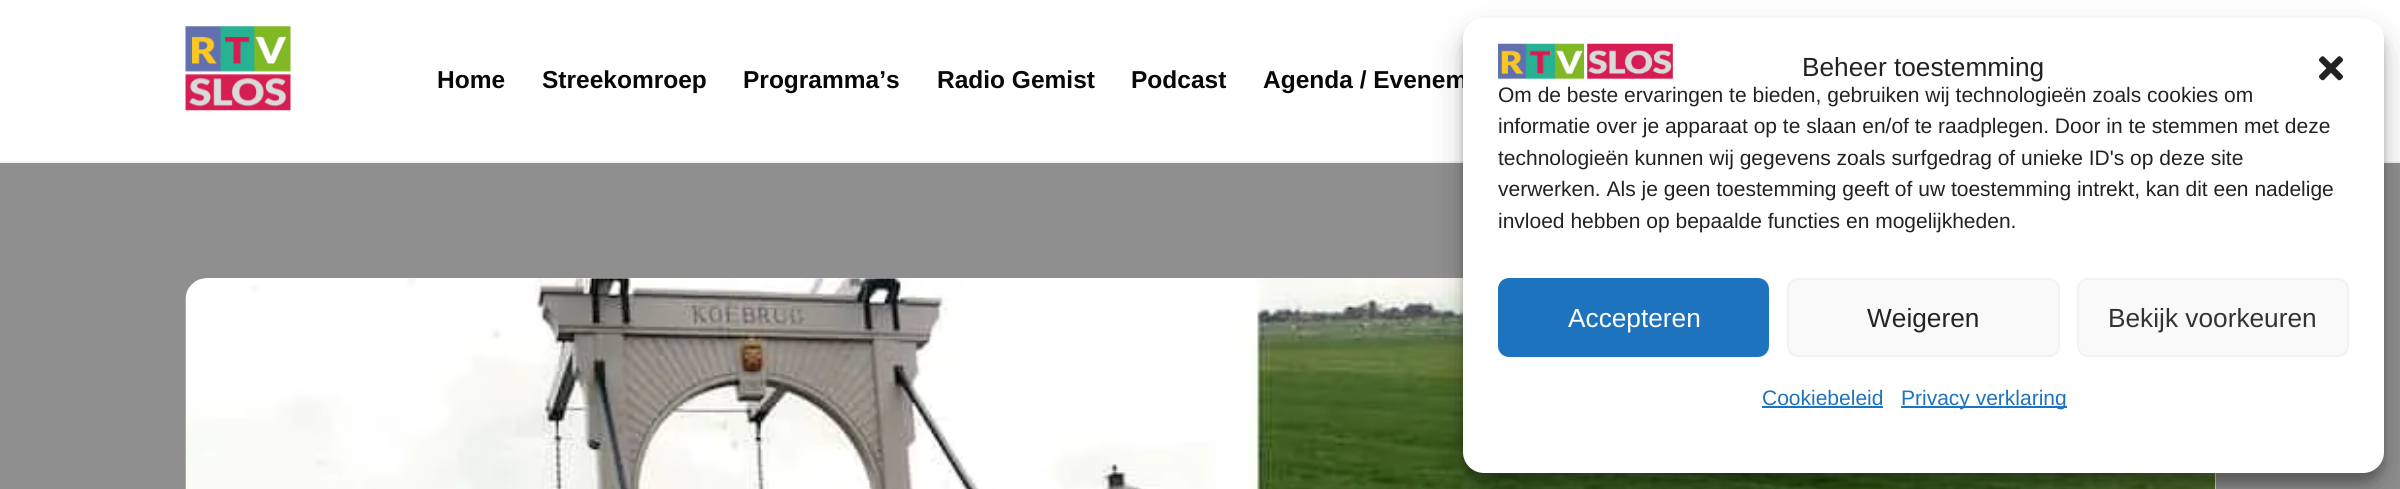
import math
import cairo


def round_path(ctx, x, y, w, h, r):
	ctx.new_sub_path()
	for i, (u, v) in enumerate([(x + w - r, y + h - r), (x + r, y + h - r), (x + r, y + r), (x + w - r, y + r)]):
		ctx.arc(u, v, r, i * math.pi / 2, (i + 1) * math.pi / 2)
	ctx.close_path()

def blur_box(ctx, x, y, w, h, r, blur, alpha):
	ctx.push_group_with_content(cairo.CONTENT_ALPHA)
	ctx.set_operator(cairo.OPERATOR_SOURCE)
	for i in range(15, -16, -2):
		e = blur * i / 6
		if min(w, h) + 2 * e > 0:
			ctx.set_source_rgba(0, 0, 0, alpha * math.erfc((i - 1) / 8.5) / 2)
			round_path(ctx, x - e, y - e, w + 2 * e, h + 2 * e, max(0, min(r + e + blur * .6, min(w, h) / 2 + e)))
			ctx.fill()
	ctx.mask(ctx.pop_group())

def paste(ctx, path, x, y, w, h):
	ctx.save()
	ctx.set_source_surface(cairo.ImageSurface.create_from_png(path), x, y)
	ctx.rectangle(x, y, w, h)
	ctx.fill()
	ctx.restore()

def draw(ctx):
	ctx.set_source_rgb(0.565, 0.561, 0.561)
	ctx.paint()
	ctx.set_source_rgb(1, 1, 1)
	ctx.rectangle(0, 0, 2400, 161)
	ctx.fill()
	ctx.set_source_rgb(0.949, 0.949, 0.949)
	ctx.rectangle(0, 161, 2400, 2)
	ctx.fill()
	paste(ctx, 'media/1.png', 185, 26, 106, 85)
	ctx.select_font_face('Liberation Sans', cairo.FONT_SLANT_NORMAL, cairo.FONT_WEIGHT_BOLD)
	ctx.set_font_size(24.5)
	ctx.set_source_rgb(0.039, 0.035, 0.035)
	for x, y, s in [
		(437, 88, 'Home'),
		(542, 88, 'Streekomroep'),
		(743, 88, 'Programma’s'),
		(937, 88, 'Radio Gemist'),
		(1131, 88, 'Podcast'),
		(1263, 88, 'Agenda / Evenem'),
	]:
		ctx.move_to(x, y)
		ctx.show_text(s)
	ctx.set_source_rgb(1, 1, 1)
	round_path(ctx, 186, 278, 2030, 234, 23)
	ctx.fill()
	paste(ctx, 'media/2.png', 185, 278, 2031, 211)
	ctx.set_source_rgb(0, 0, 0)
	blur_box(ctx, 1463, 28, 921, 455, 21, 5, 0.23)
	blur_box(ctx, 1463, 35, 921, 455, 21, 17.5, 0.19)
	ctx.set_source_rgb(1, 1, 1)
	round_path(ctx, 1463, 18, 921, 455, 21)
	ctx.fill()
	paste(ctx, 'media/3.png', 1498, 43, 175, 37)
	ctx.select_font_face('Liberation Sans')
	ctx.set_font_size(26.25)
	ctx.set_source_rgb(0.133, 0.133, 0.133)
	ctx.move_to(1802, 76)
	ctx.show_text('Beheer toestemming')
	paste(ctx, 'media/4.png', 2319, 56, 24, 25)
	ctx.set_font_size(21)
	for x, y, s in [
		(1498, 102, 'Om de beste ervaringen te bieden, gebruiken wij technologieën zoals cookies om'),
		(1498, 133, 'informatie over je apparaat op te slaan en/of te raadplegen. Door in te stemmen met deze'),
		(1498, 165, 'technologieën kunnen wij gegevens zoals surfgedrag of unieke ID\'s op deze site'),
		(1498, 196, 'verwerken. Als je geen toestemming geeft of uw toestemming intrekt, kan dit een nadelige'),
		(1498, 228, 'invloed hebben op bepaalde functies en mogelijkheden.'),
	]:
		ctx.move_to(x, y)
		ctx.show_text(s)
	ctx.set_source_rgb(0.118, 0.451, 0.745)
	round_path(ctx, 1499, 279, 269, 77, 10)
	ctx.fill_preserve()
	ctx.stroke()
	ctx.set_font_size(26.25)
	ctx.set_source_rgb(1, 1, 1)
	ctx.move_to(1568, 327)
	ctx.show_text('Accepteren')
	ctx.set_source_rgb(0.976, 0.976, 0.976)
	round_path(ctx, 1788, 279, 271, 77, 10)
	ctx.fill_preserve()
	ctx.set_source_rgb(0.949, 0.949, 0.949)
	ctx.stroke()
	ctx.set_source_rgb(0.133, 0.133, 0.133)
	ctx.move_to(1867, 327)
	ctx.show_text('Weigeren')
	ctx.set_source_rgb(0.976, 0.976, 0.976)
	round_path(ctx, 2078, 279, 270, 77, 10)
	ctx.fill_preserve()
	ctx.set_source_rgb(0.949, 0.949, 0.949)
	ctx.stroke()
	ctx.set_source_rgb(0.2, 0.2, 0.2)
	ctx.move_to(2108, 327)
	ctx.show_text('Bekijk voorkeuren')
	ctx.set_font_size(21)
	ctx.set_source_rgb(0.118, 0.451, 0.745)
	ctx.move_to(1762, 405)
	ctx.show_text('Cookiebeleid')
	ctx.rectangle(1762, 406, 121, 2)
	ctx.fill()
	ctx.rectangle(1901, 406, 166, 2)
	ctx.fill()
	ctx.move_to(1901, 405)
	ctx.show_text('Privacy verklaring')


surface = cairo.ImageSurface(cairo.FORMAT_RGB24, 2400, 489)
ctx = cairo.Context(surface)
options = cairo.FontOptions()
options.set_hint_metrics(cairo.HINT_METRICS_OFF)
options.set_hint_style(cairo.HINT_STYLE_NONE)
ctx.set_font_options(options)
ctx.set_miter_limit(4)
draw(ctx)
surface.write_to_png('image.png')
